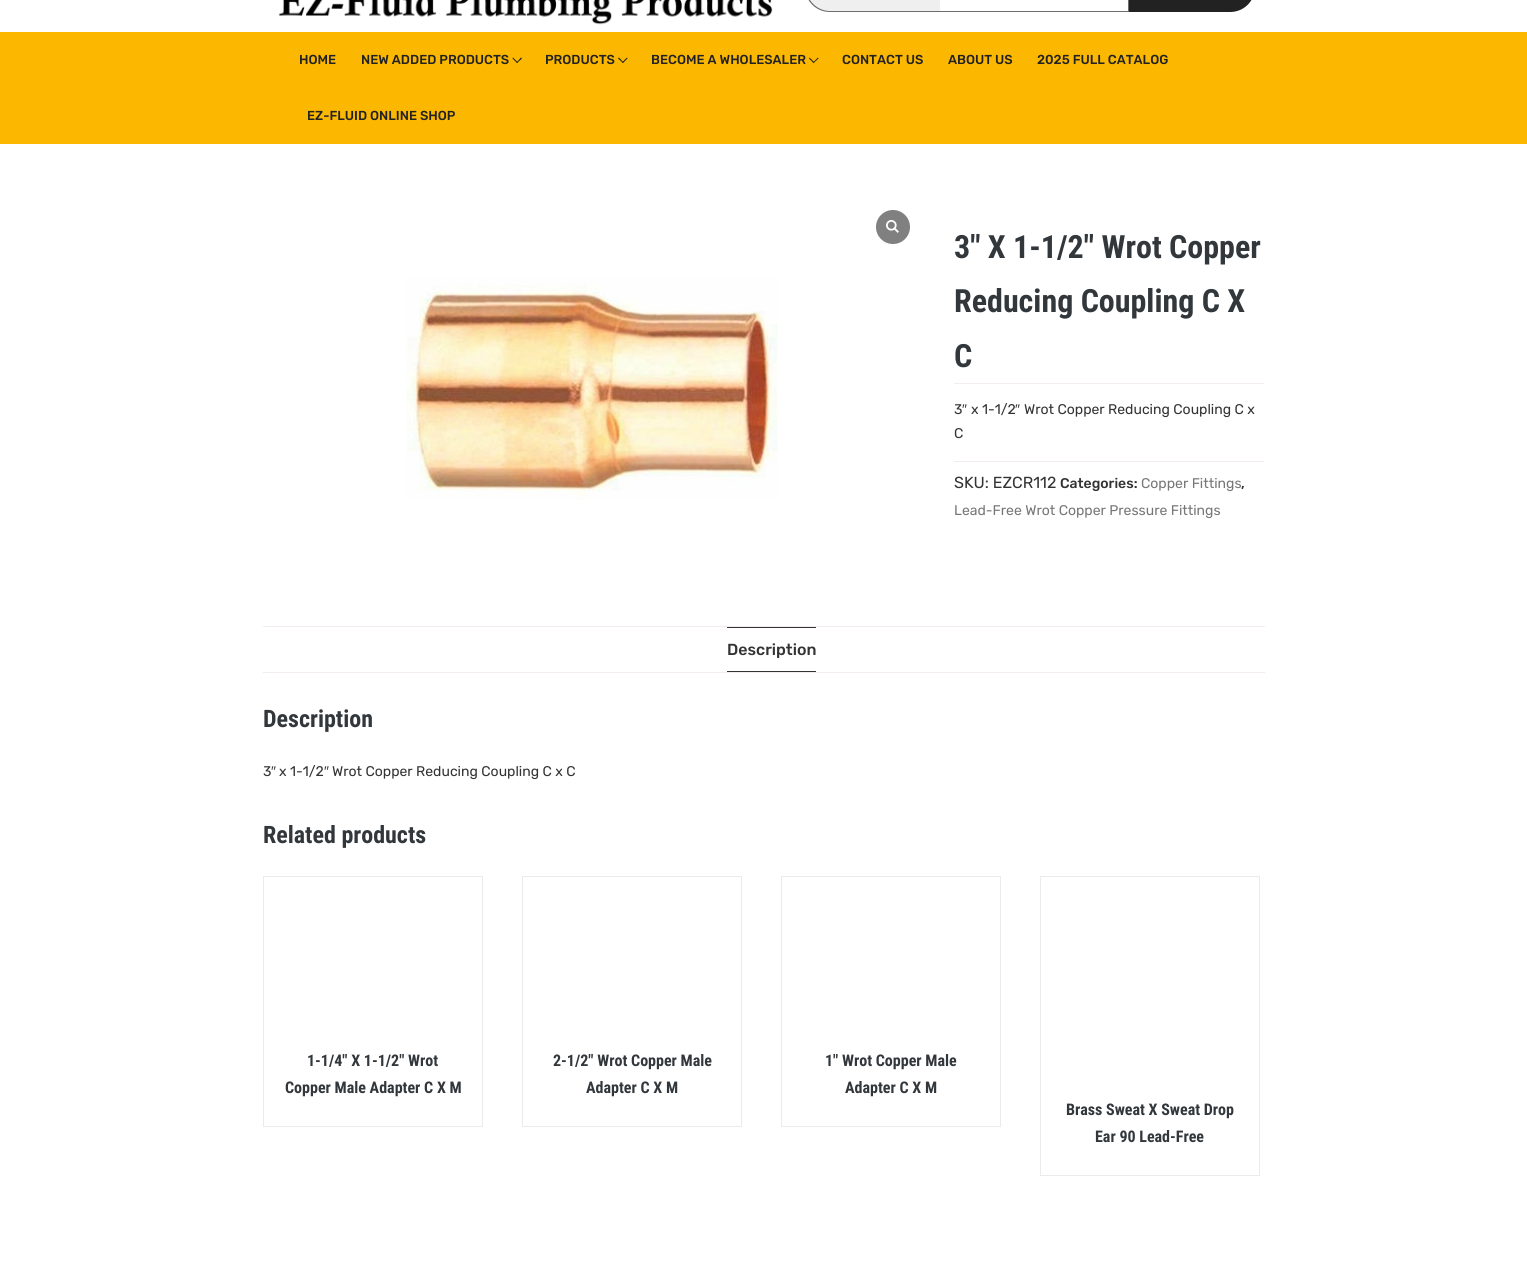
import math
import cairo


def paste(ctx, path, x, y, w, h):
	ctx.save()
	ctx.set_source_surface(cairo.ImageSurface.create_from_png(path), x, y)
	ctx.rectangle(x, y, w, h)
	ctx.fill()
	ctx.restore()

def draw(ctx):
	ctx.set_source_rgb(1, 1, 1)
	ctx.paint()
	paste(ctx, 'media/1.png', 278, 0, 495, 25)
	ctx.set_source_rgb(0.937, 0.937, 0.937)
	ctx.new_path()
	ctx.move_to(830, -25)
	ctx.line_to(940, -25)
	ctx.line_to(940, 12)
	ctx.line_to(830, 12)
	ctx.curve_to(816, 12, 805, 1, 805, -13)
	ctx.line_to(805, 0)
	ctx.curve_to(805, -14, 816, -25, 830, -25)
	ctx.close_path()
	ctx.fill()
	ctx.set_source_rgb(0.431, 0.431, 0.431)
	ctx.set_fill_rule(cairo.FILL_RULE_EVEN_ODD)
	ctx.new_path()
	ctx.move_to(830, -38)
	ctx.line_to(940, -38)
	ctx.line_to(940, 12)
	ctx.line_to(830, 12)
	ctx.curve_to(816, 12, 805, 1, 805, -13)
	ctx.curve_to(805, -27, 816, -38, 830, -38)
	ctx.close_path()
	ctx.move_to(830, -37)
	ctx.line_to(940, -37)
	ctx.line_to(940, 11)
	ctx.line_to(830, 11)
	ctx.curve_to(817, 11, 806, 0, 806, -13)
	ctx.curve_to(806, -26, 817, -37, 830, -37)
	ctx.close_path()
	ctx.fill()
	ctx.rectangle(1128, 0, 1, 12)
	ctx.fill()
	ctx.rectangle(940, 11, 189, 1)
	ctx.fill()
	ctx.set_source_rgb(0.133, 0.133, 0.133)
	ctx.new_path()
	ctx.move_to(1129, -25)
	ctx.line_to(1230, -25)
	ctx.curve_to(1244, -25, 1255, -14, 1255, 0)
	ctx.line_to(1255, -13)
	ctx.curve_to(1255, 1, 1244, 12, 1230, 12)
	ctx.line_to(1129, 12)
	ctx.close_path()
	ctx.fill()
	ctx.set_source_rgb(0.988, 0.718, 0)
	ctx.rectangle(0, 32, 1527, 112)
	ctx.fill()
	ctx.select_font_face('Rubik Medium')
	ctx.set_font_size(13)
	ctx.set_source_rgb(0.133, 0.133, 0.133)
	ctx.move_to(299, 64)
	ctx.show_text('HOME')
	ctx.move_to(361, 64)
	ctx.show_text('NEW ADDED PRODUCTS')
	ctx.set_fill_rule(cairo.FILL_RULE_WINDING)
	ctx.new_path()
	ctx.move_to(521, 57.5)
	ctx.line_to(522, 58.5)
	ctx.line_to(517, 63)
	ctx.line_to(516.5, 62.5)
	ctx.close_path()
	ctx.fill()
	ctx.new_path()
	ctx.move_to(513, 57.5)
	ctx.line_to(518, 62.5)
	ctx.line_to(517, 63)
	ctx.line_to(512.5, 58.5)
	ctx.close_path()
	ctx.fill()
	ctx.move_to(545, 64)
	ctx.show_text('PRODUCTS')
	ctx.new_path()
	ctx.move_to(627, 57.5)
	ctx.line_to(627.5, 58.5)
	ctx.line_to(623, 63)
	ctx.line_to(622, 62.5)
	ctx.close_path()
	ctx.fill()
	ctx.new_path()
	ctx.move_to(619, 57.5)
	ctx.line_to(623.5, 62.5)
	ctx.line_to(623, 63)
	ctx.line_to(618, 58.5)
	ctx.close_path()
	ctx.fill()
	ctx.move_to(651, 64)
	ctx.show_text('BECOME A WHOLESALER')
	ctx.new_path()
	ctx.move_to(818, 57.5)
	ctx.line_to(818.5, 58.5)
	ctx.line_to(813.5, 63)
	ctx.line_to(813, 62.5)
	ctx.close_path()
	ctx.fill()
	ctx.new_path()
	ctx.move_to(809.5, 57.5)
	ctx.line_to(814.5, 62.5)
	ctx.line_to(813.5, 63)
	ctx.line_to(809, 58.5)
	ctx.close_path()
	ctx.fill()
	for x, y, s in [
		(842, 64, 'CONTACT US'),
		(948, 64, 'ABOUT US'),
		(1037, 64, '2025 FULL CATALOG'),
		(307, 120, 'EZ-FLUID ONLINE SHOP'),
	]:
		ctx.move_to(x, y)
		ctx.show_text(s)
	ctx.set_source_rgb(0.502, 0.502, 0.502)
	ctx.new_path()
	ctx.arc(893, 227, 17, 0, 2 * math.pi)
	ctx.fill()
	paste(ctx, 'media/2.png', 886, 220, 13, 13)
	paste(ctx, 'media/3.png', 406, 276, 372, 224)
	ctx.select_font_face('Roboto Condensed', cairo.FONT_SLANT_NORMAL, cairo.FONT_WEIGHT_BOLD)
	ctx.set_font_size(32)
	ctx.set_source_rgb(0.196, 0.216, 0.235)
	for x, y, s in [
		(954, 258, '3″ X 1-1/2″ Wrot Copper'),
		(954, 312, 'Reducing Coupling C X'),
		(954, 367, 'C'),
	]:
		ctx.move_to(x, y)
		ctx.show_text(s)
	ctx.set_source_rgb(0.949, 0.925, 0.925)
	ctx.rectangle(954, 383, 310, 1)
	ctx.fill()
	ctx.select_font_face('Rubik')
	ctx.set_font_size(14)
	ctx.set_source_rgb(0.2, 0.2, 0.2)
	ctx.move_to(954, 414)
	ctx.show_text('3')
	ctx.select_font_face('Liberation Sans')
	ctx.move_to(962, 414)
	ctx.show_text('″')
	ctx.select_font_face('Rubik')
	ctx.move_to(971, 414)
	ctx.show_text('x 1-1/2')
	ctx.select_font_face('Liberation Sans')
	ctx.move_to(1015, 414)
	ctx.show_text('″')
	ctx.select_font_face('Rubik')
	ctx.move_to(1024, 414)
	ctx.show_text('Wrot Copper Reducing Coupling C x')
	ctx.move_to(954, 438)
	ctx.show_text('C')
	ctx.set_source_rgb(0.949, 0.925, 0.925)
	ctx.rectangle(954, 461, 310, 1)
	ctx.fill()
	ctx.set_font_size(16)
	ctx.set_source_rgb(0.2, 0.2, 0.2)
	ctx.move_to(954, 488)
	ctx.show_text('SKU: EZCR112')
	ctx.select_font_face('Rubik Medium')
	ctx.set_font_size(14)
	ctx.move_to(1060, 488)
	ctx.show_text('Categories:')
	ctx.select_font_face('Rubik')
	ctx.set_source_rgb(0.467, 0.467, 0.467)
	ctx.move_to(1141, 488)
	ctx.show_text('Copper Fittings')
	ctx.select_font_face('Rubik Medium')
	ctx.set_source_rgb(0.2, 0.2, 0.2)
	ctx.move_to(1241, 488)
	ctx.show_text(',')
	ctx.select_font_face('Rubik')
	ctx.set_source_rgb(0.467, 0.467, 0.467)
	ctx.move_to(954, 515)
	ctx.show_text('Lead-Free Wrot Copper Pressure Fittings')
	ctx.set_source_rgb(0.949, 0.925, 0.925)
	ctx.rectangle(263, 626, 1002, 1)
	ctx.rectangle(263, 672, 1002, 1)
	ctx.fill()
	ctx.set_source_rgb(0.2, 0.2, 0.2)
	ctx.rectangle(727, 627, 89, 1)
	ctx.rectangle(727, 671, 89, 1)
	ctx.fill()
	ctx.select_font_face('Rubik Medium')
	ctx.set_font_size(16)
	ctx.move_to(727, 655)
	ctx.show_text('Description')
	ctx.select_font_face('Roboto Condensed', cairo.FONT_SLANT_NORMAL, cairo.FONT_WEIGHT_BOLD)
	ctx.set_font_size(24)
	ctx.set_source_rgb(0.196, 0.216, 0.235)
	ctx.move_to(263, 727)
	ctx.show_text('Description')
	ctx.select_font_face('Rubik')
	ctx.set_font_size(14)
	ctx.set_source_rgb(0.2, 0.2, 0.2)
	ctx.move_to(263, 776)
	ctx.show_text('3')
	ctx.select_font_face('Liberation Sans')
	ctx.move_to(271, 776)
	ctx.show_text('″')
	ctx.select_font_face('Rubik')
	ctx.move_to(279, 776)
	ctx.show_text('x 1-1/2')
	ctx.select_font_face('Liberation Sans')
	ctx.move_to(324, 776)
	ctx.show_text('″')
	ctx.select_font_face('Rubik')
	ctx.move_to(332, 776)
	ctx.show_text('Wrot Copper Reducing Coupling C x C')
	ctx.select_font_face('Roboto Condensed', cairo.FONT_SLANT_NORMAL, cairo.FONT_WEIGHT_BOLD)
	ctx.set_font_size(24)
	ctx.set_source_rgb(0.196, 0.216, 0.235)
	ctx.move_to(263, 843)
	ctx.show_text('Related products')
	ctx.rectangle(263.5, 876.5, 219, 250)
	ctx.set_source_rgb(0.918, 0.918, 0.918)
	ctx.set_line_width(1)
	ctx.stroke()
	ctx.set_font_size(16)
	ctx.set_source_rgb(0.196, 0.216, 0.235)
	ctx.move_to(307, 1066)
	ctx.show_text('1-1/4″ X 1-1/2″ Wrot')
	ctx.move_to(285, 1093)
	ctx.show_text('Copper Male Adapter C X M')
	ctx.rectangle(522.5, 876.5, 219, 250)
	ctx.set_source_rgb(0.918, 0.918, 0.918)
	ctx.stroke()
	ctx.set_source_rgb(0.196, 0.216, 0.235)
	ctx.move_to(553, 1066)
	ctx.show_text('2-1/2″ Wrot Copper Male')
	ctx.move_to(586, 1093)
	ctx.show_text('Adapter C X M')
	ctx.rectangle(781.5, 876.5, 219, 250)
	ctx.set_source_rgb(0.918, 0.918, 0.918)
	ctx.stroke()
	ctx.set_source_rgb(0.196, 0.216, 0.235)
	ctx.move_to(825, 1066)
	ctx.show_text('1″ Wrot Copper Male')
	ctx.move_to(845, 1093)
	ctx.show_text('Adapter C X M')
	ctx.rectangle(1040.5, 876.5, 219, 299)
	ctx.set_source_rgb(0.918, 0.918, 0.918)
	ctx.stroke()
	ctx.set_source_rgb(0.196, 0.216, 0.235)
	ctx.move_to(1066, 1115)
	ctx.show_text('Brass Sweat X Sweat Drop')
	ctx.move_to(1095, 1142)
	ctx.show_text('Ear 90 Lead-Free')


surface = cairo.ImageSurface(cairo.FORMAT_RGB24, 1527, 1265)
ctx = cairo.Context(surface)
options = cairo.FontOptions()
options.set_hint_metrics(cairo.HINT_METRICS_OFF)
options.set_hint_style(cairo.HINT_STYLE_NONE)
ctx.set_font_options(options)
ctx.set_miter_limit(4)
draw(ctx)
surface.write_to_png('image.png')
